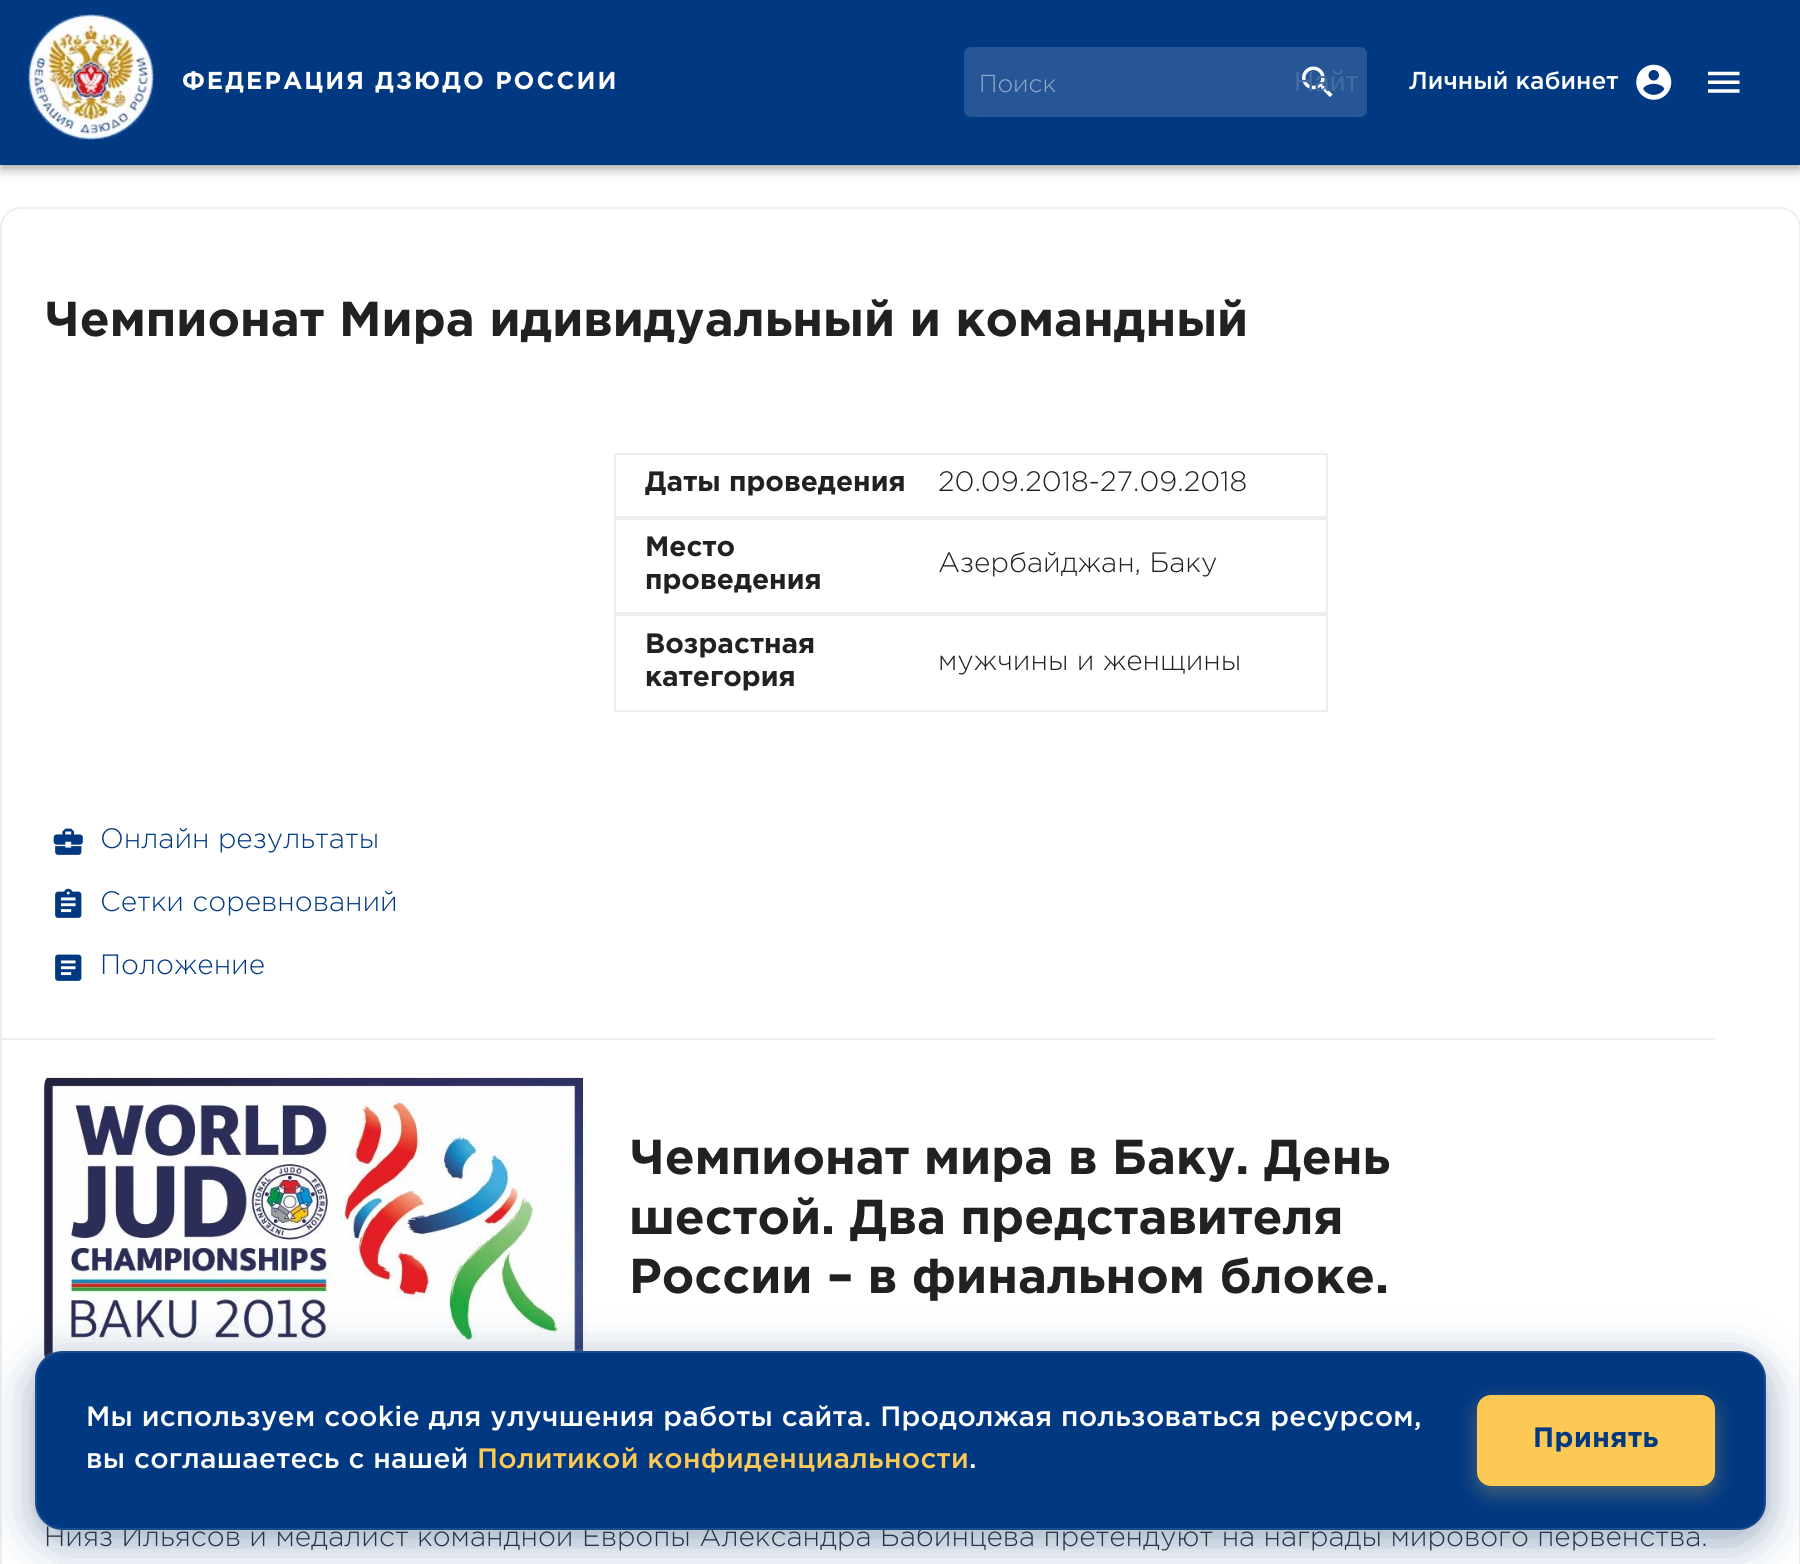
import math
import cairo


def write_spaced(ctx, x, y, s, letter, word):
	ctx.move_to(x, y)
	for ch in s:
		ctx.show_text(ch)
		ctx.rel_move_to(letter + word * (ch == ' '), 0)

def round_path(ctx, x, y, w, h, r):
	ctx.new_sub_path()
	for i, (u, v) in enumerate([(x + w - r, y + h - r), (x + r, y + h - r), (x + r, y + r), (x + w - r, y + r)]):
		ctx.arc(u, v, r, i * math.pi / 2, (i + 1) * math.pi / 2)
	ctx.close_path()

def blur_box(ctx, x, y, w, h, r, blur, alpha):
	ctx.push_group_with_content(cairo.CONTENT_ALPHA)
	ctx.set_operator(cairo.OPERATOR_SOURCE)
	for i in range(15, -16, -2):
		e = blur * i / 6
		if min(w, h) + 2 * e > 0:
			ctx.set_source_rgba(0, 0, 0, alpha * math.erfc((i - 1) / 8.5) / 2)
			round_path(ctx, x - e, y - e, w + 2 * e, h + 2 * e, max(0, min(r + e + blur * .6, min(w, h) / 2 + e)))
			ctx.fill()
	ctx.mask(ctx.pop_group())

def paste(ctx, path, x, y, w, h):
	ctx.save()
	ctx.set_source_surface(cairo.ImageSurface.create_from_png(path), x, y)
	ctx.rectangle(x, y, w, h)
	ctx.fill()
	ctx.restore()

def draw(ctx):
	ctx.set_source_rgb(1, 1, 1)
	ctx.paint()
	ctx.set_source_rgb(0, 0, 0)
	blur_box(ctx, 0, 2, 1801, 164, 0, 9, 0.12)
	blur_box(ctx, 0, 7, 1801, 165, 0, 4.5, 0.14)
	blur_box(ctx, 2, 5, 1797, 161, 0, 3.5, 0.2)
	ctx.set_source_rgb(0, 0.22, 0.51)
	ctx.rectangle(0, 0, 1800, 165)
	ctx.fill()
	paste(ctx, 'media/1.png', 28, 14, 126, 126)
	ctx.select_font_face('Gotham', cairo.FONT_SLANT_NORMAL, cairo.FONT_WEIGHT_BOLD)
	ctx.set_font_size(24.5)
	ctx.set_source_rgb(1, 1, 1)
	write_spaced(ctx, 182, 89, 'ФЕДЕРАЦИЯ ДЗЮДО РОССИИ', 2, 0)
	ctx.set_source_rgb(0.149, 0.337, 0.584)
	round_path(ctx, 964, 47, 403, 70, 7)
	ctx.fill()
	paste(ctx, 'media/2.png', 1302, 66, 31, 31)
	ctx.select_font_face('Gotham Light')
	ctx.set_source_rgb(0.576, 0.671, 0.792)
	ctx.move_to(979, 92)
	ctx.show_text('Поиск')
	ctx.select_font_face('Liberation Sans')
	ctx.set_font_size(28)
	ctx.set_source_rgb(0.263, 0.427, 0.639)
	ctx.move_to(1294, 91)
	ctx.show_text('Найт')
	ctx.select_font_face('Gotham Medium')
	ctx.set_font_size(24.5)
	ctx.set_source_rgb(1, 1, 1)
	ctx.move_to(1409, 89)
	ctx.show_text('Личный кабинет')
	paste(ctx, 'media/3.png', 1636, 64, 36, 36)
	paste(ctx, 'media/4.png', 1708, 71, 32, 22)
	round_path(ctx, 1, 208, 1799, 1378, 20)
	ctx.set_source_rgb(0.933, 0.933, 0.933)
	ctx.stroke()
	ctx.select_font_face('Gotham', cairo.FONT_SLANT_NORMAL, cairo.FONT_WEIGHT_BOLD)
	ctx.set_font_size(49)
	ctx.set_source_rgb(0.129, 0.129, 0.129)
	ctx.move_to(44, 336)
	ctx.show_text('Чемпионат Мира идивидуальный и командный')
	ctx.set_source_rgb(0.933, 0.933, 0.933)
	ctx.rectangle(2, 1038, 1713, 2)
	ctx.fill()
	ctx.rectangle(615, 454, 712, 63)
	ctx.stroke()
	ctx.set_font_size(28)
	ctx.set_source_rgb(0.129, 0.129, 0.129)
	ctx.move_to(645, 491)
	ctx.show_text('Даты проведения')
	ctx.select_font_face('Gotham Light')
	ctx.move_to(938, 491)
	ctx.show_text('20.09.2018-27.09.2018')
	ctx.rectangle(615, 519, 712, 94)
	ctx.set_source_rgb(0.933, 0.933, 0.933)
	ctx.stroke()
	ctx.select_font_face('Gotham', cairo.FONT_SLANT_NORMAL, cairo.FONT_WEIGHT_BOLD)
	ctx.set_source_rgb(0.129, 0.129, 0.129)
	ctx.move_to(645, 556)
	ctx.show_text('Место')
	ctx.move_to(645, 589)
	ctx.show_text('проведения')
	ctx.select_font_face('Gotham Light')
	ctx.move_to(938, 572)
	ctx.show_text('Азербайджан, Баку')
	ctx.rectangle(615, 615, 712, 96)
	ctx.set_source_rgb(0.933, 0.933, 0.933)
	ctx.stroke()
	ctx.select_font_face('Gotham', cairo.FONT_SLANT_NORMAL, cairo.FONT_WEIGHT_BOLD)
	ctx.set_source_rgb(0.129, 0.129, 0.129)
	ctx.move_to(645, 653)
	ctx.show_text('Возрастная')
	ctx.move_to(645, 686)
	ctx.show_text('категория')
	ctx.select_font_face('Gotham Light')
	ctx.move_to(938, 670)
	ctx.show_text('мужчины и женщины')
	paste(ctx, 'media/5.png', 53, 828, 30, 27)
	ctx.set_source_rgb(0, 0.22, 0.51)
	ctx.move_to(100, 848)
	ctx.show_text('Онлайн результаты')
	paste(ctx, 'media/6.png', 55, 888, 27, 30)
	ctx.move_to(100, 911)
	ctx.show_text('Сетки соревнований')
	paste(ctx, 'media/7.png', 55, 954, 27, 27)
	ctx.move_to(100, 974)
	ctx.show_text('Положение')
	paste(ctx, 'media/8.png', 43, 1074, 543, 284)
	ctx.select_font_face('Gotham', cairo.FONT_SLANT_NORMAL, cairo.FONT_WEIGHT_BOLD)
	ctx.set_font_size(49)
	ctx.set_source_rgb(0.129, 0.129, 0.129)
	for x, y, s in [
		(629, 1174, 'Чемпионат мира в Баку. День'),
		(629, 1234, 'шестой. Два представителя'),
		(629, 1293, 'России – в финальном блоке.'),
	]:
		ctx.move_to(x, y)
		ctx.show_text(s)
	ctx.select_font_face('Gotham Light')
	ctx.set_font_size(28)
	ctx.set_source_rgb(0.184, 0.204, 0.267)
	ctx.move_to(44, 1546)
	ctx.show_text('Нияз Ильясов и медалист командной Европы Александра Бабинцева претендуют на награды мирового первенства.')
	round_path(ctx, 34, 1350, 1733, 180, 29)
	ctx.set_source_rgba(1, 1, 1, 0.1)
	ctx.stroke()
	ctx.set_source_rgb(0, 0, 0)
	blur_box(ctx, 35, 1358, 1731, 179, 28, 14, 0.15)
	ctx.set_source_rgb(0, 0.22, 0.51)
	blur_box(ctx, 35, 1365, 1731, 179, 28, 28, 0.3)
	ctx.set_source_rgb(0, 0.22, 0.51)
	round_path(ctx, 35, 1351, 1731, 179, 28)
	ctx.fill()
	round_path(ctx, 36, 1352, 1729, 177, 27)
	ctx.set_source_rgba(1, 1, 1, 0.1)
	ctx.stroke()
	ctx.select_font_face('Gotham Medium')
	ctx.set_source_rgb(1, 1, 1)
	write_spaced(ctx, 86, 1426, 'Мы используем cookie для улучшения работы сайта. Продолжая пользоваться ресурсом,', 0.28, 0)
	write_spaced(ctx, 86, 1468, 'вы соглашаетесь с нашей', 0.28, 0)
	ctx.set_source_rgb(0.988, 0.788, 0.329)
	write_spaced(ctx, 477, 1468, 'Политикой конфиденциальности', 0.28, 0)
	ctx.set_source_rgb(1, 1, 1)
	write_spaced(ctx, 969, 1468, '.', 0.28, 0)
	ctx.set_source_rgb(0.988, 0.788, 0.329)
	blur_box(ctx, 1477, 1402, 238, 91, 14, 10.5, 0.3)
	ctx.set_source_rgb(0.988, 0.788, 0.329)
	round_path(ctx, 1477, 1395, 238, 91, 14)
	ctx.fill()
	ctx.select_font_face('Gotham', cairo.FONT_SLANT_NORMAL, cairo.FONT_WEIGHT_BOLD)
	ctx.set_source_rgb(0, 0.22, 0.51)
	write_spaced(ctx, 1533, 1447, 'Принять', 0.5, 0)


surface = cairo.ImageSurface(cairo.FORMAT_RGB24, 1800, 1564)
ctx = cairo.Context(surface)
options = cairo.FontOptions()
options.set_hint_metrics(cairo.HINT_METRICS_OFF)
options.set_hint_style(cairo.HINT_STYLE_NONE)
ctx.set_font_options(options)
ctx.set_miter_limit(4)
draw(ctx)
surface.write_to_png('image.png')
